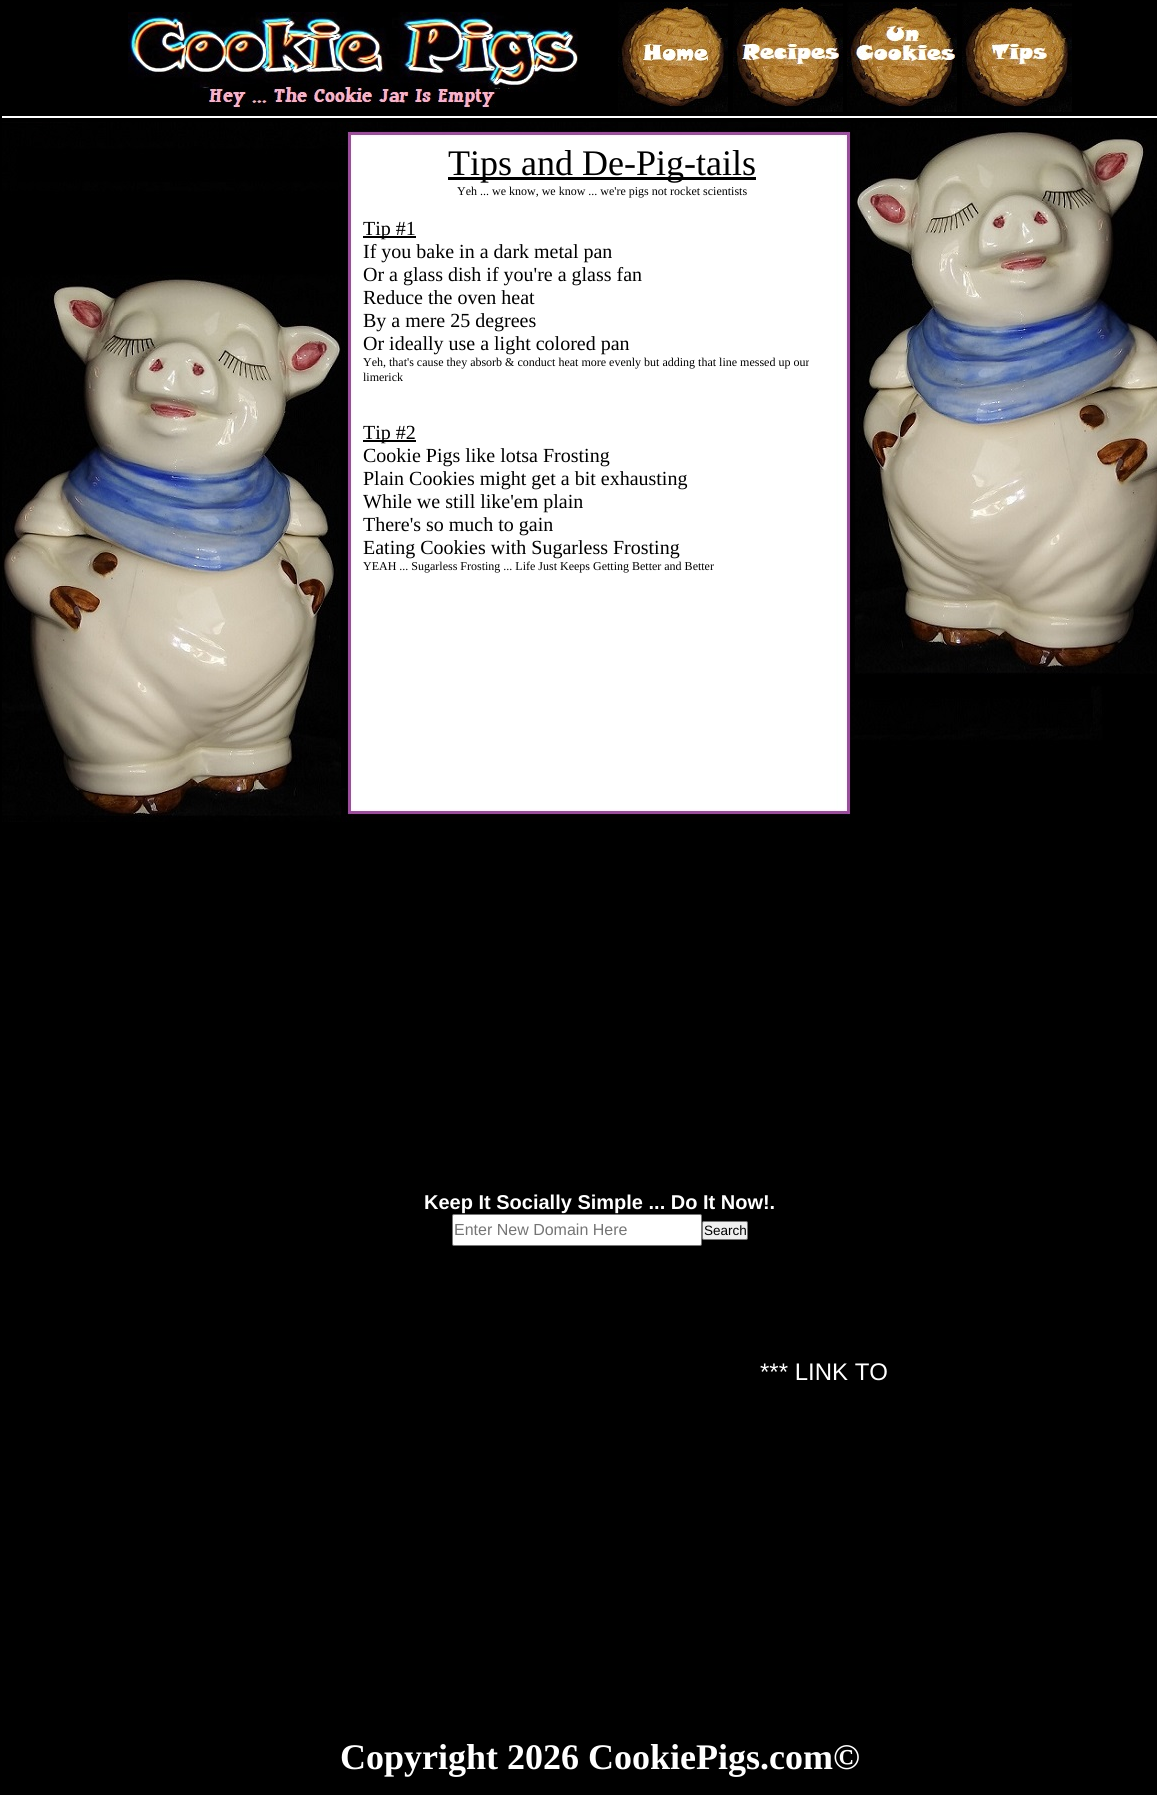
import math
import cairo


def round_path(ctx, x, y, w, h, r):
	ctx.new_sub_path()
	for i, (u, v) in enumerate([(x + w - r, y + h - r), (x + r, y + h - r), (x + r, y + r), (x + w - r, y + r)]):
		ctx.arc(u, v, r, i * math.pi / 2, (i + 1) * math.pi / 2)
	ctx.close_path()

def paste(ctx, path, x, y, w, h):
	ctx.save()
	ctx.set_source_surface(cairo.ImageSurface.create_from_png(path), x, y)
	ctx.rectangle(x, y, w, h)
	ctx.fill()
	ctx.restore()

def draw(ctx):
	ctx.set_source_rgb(0, 0, 0)
	ctx.paint()
	paste(ctx, 'media/1.png', 128, 12, 450, 97)
	paste(ctx, 'media/2.png', 618, 2, 110, 110)
	paste(ctx, 'media/3.png', 733, 2, 110, 110)
	paste(ctx, 'media/4.png', 847, 2, 110, 110)
	paste(ctx, 'media/5.png', 962, 2, 110, 110)
	ctx.set_source_rgb(1, 1, 1)
	ctx.rectangle(2, 116, 1155, 2)
	ctx.fill()
	paste(ctx, 'media/6.png', 2, 122, 1155, 700)
	ctx.set_source_rgb(0, 0, 0)
	ctx.rectangle(448, 177, 308, 3)
	ctx.fill()
	ctx.select_font_face('Liberation Serif')
	ctx.set_font_size(36)
	ctx.move_to(448, 175)
	ctx.show_text('Tips and De-Pig-tails')
	ctx.set_font_size(12)
	ctx.move_to(457, 195)
	ctx.show_text('Yeh ... we know, we know ... we\'re pigs not rocket scientists')
	ctx.rectangle(363, 236, 53, 2)
	ctx.fill()
	ctx.set_font_size(20)
	for x, y, s in [
		(363, 235, 'Tip #1'),
		(363, 258, 'If you bake in a dark metal pan'),
		(363, 281, 'Or a glass dish if you\'re a glass fan'),
		(363, 304, 'Reduce the oven heat'),
		(363, 327, 'By a mere 25 degrees'),
		(363, 350, 'Or ideally use a light colored pan'),
	]:
		ctx.move_to(x, y)
		ctx.show_text(s)
	ctx.set_font_size(12)
	ctx.move_to(363, 366)
	ctx.show_text('Yeh, that\'s cause they absorb & conduct heat more evenly but adding that line messed up our')
	ctx.move_to(363, 381)
	ctx.show_text('limerick')
	ctx.rectangle(363, 440, 53, 2)
	ctx.fill()
	ctx.set_font_size(20)
	for x, y, s in [
		(363, 439, 'Tip #2'),
		(363, 462, 'Cookie Pigs like lotsa Frosting'),
		(363, 485, 'Plain Cookies might get a bit exhausting'),
		(363, 508, 'While we still like\'em plain'),
		(363, 531, 'There\'s so much to gain'),
		(363, 554, 'Eating Cookies with Sugarless Frosting'),
	]:
		ctx.move_to(x, y)
		ctx.show_text(s)
	ctx.set_font_size(12)
	ctx.move_to(363, 570)
	ctx.show_text('YEAH ... Sugarless Frosting ... Life Just Keeps Getting Better and Better')
	ctx.select_font_face('Liberation Sans', cairo.FONT_SLANT_NORMAL, cairo.FONT_WEIGHT_BOLD)
	ctx.set_font_size(20)
	ctx.set_source_rgb(1, 1, 1)
	ctx.move_to(424, 1209)
	ctx.show_text('Keep It Socially Simple ... Do It Now!.')
	round_path(ctx, 452.5, 1214.5, 249, 31, 1.5)
	ctx.fill_preserve()
	ctx.set_source_rgb(0.463, 0.463, 0.463)
	ctx.set_line_width(1)
	ctx.stroke()
	ctx.select_font_face('Liberation Sans')
	ctx.set_font_size(16)
	ctx.set_source_rgb(0.459, 0.459, 0.459)
	ctx.move_to(454, 1235)
	ctx.show_text('Enter New Domain Here')
	ctx.set_source_rgb(0.937, 0.937, 0.937)
	round_path(ctx, 702.5, 1221.5, 45, 18, 1.5)
	ctx.fill_preserve()
	ctx.set_source_rgb(0.463, 0.463, 0.463)
	ctx.stroke()
	ctx.set_font_size(13.5)
	ctx.set_source_rgb(0, 0, 0)
	ctx.move_to(704, 1235)
	ctx.show_text('Search')
	ctx.set_font_size(24)
	ctx.set_source_rgb(1, 1, 1)
	ctx.move_to(760, 1380)
	ctx.show_text('*** LINK TO')
	ctx.select_font_face('Liberation Serif', cairo.FONT_SLANT_NORMAL, cairo.FONT_WEIGHT_BOLD)
	ctx.set_font_size(36)
	ctx.move_to(340, 1769)
	ctx.show_text('Copyright 2026 CookiePigs.com©')


surface = cairo.ImageSurface(cairo.FORMAT_RGB24, 1157, 1795)
ctx = cairo.Context(surface)
options = cairo.FontOptions()
options.set_hint_metrics(cairo.HINT_METRICS_OFF)
options.set_hint_style(cairo.HINT_STYLE_NONE)
ctx.set_font_options(options)
ctx.set_miter_limit(4)
draw(ctx)
surface.write_to_png('image.png')
